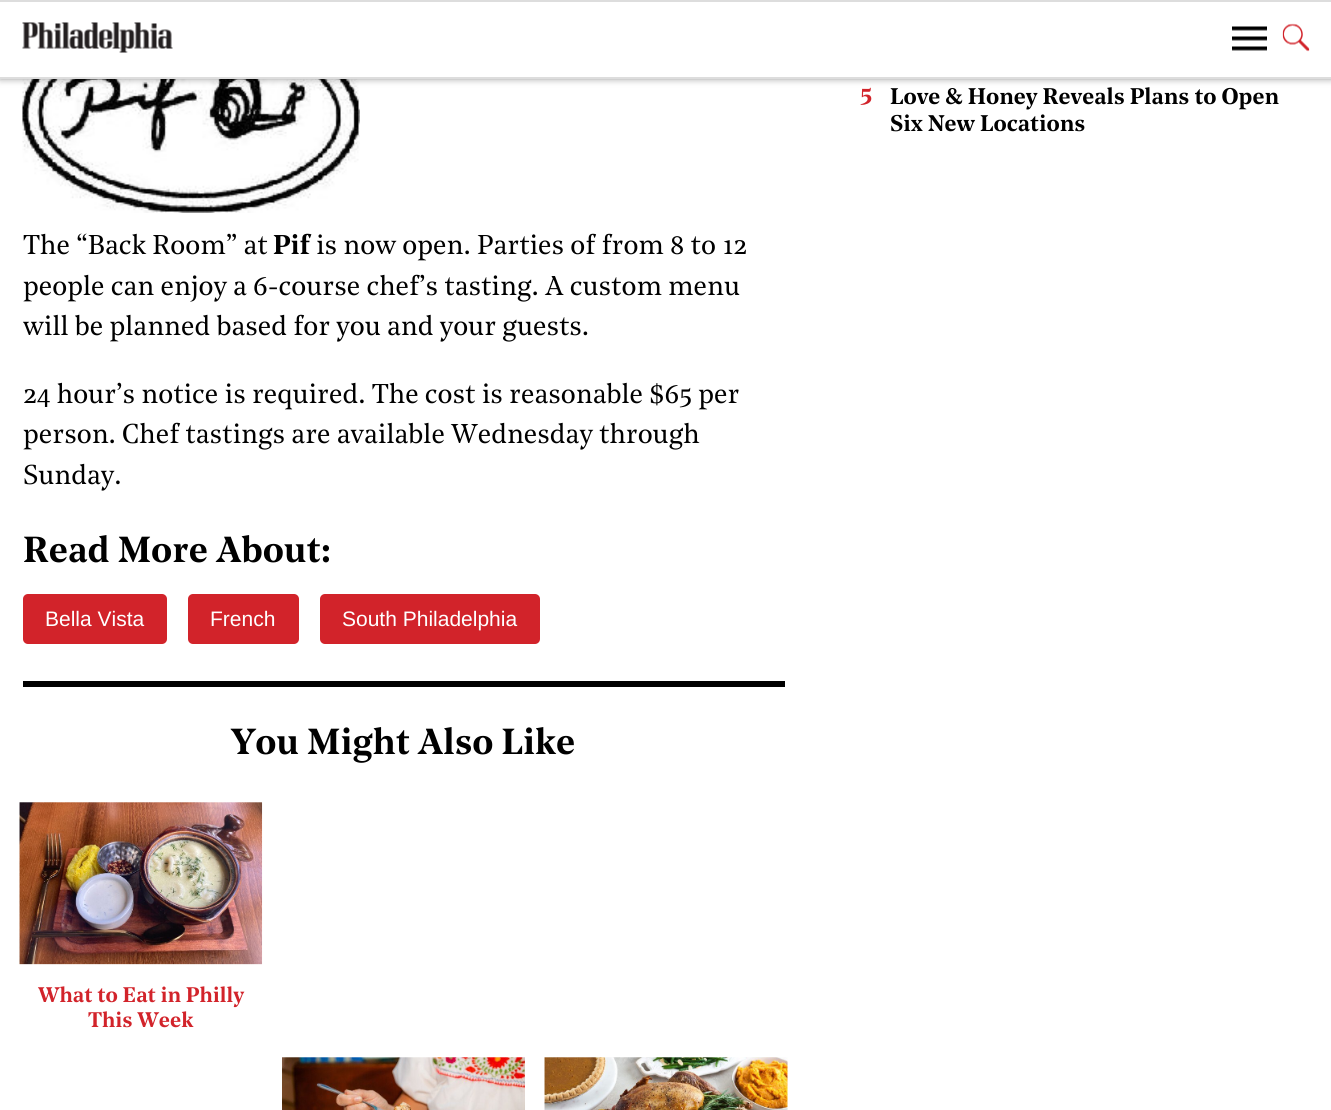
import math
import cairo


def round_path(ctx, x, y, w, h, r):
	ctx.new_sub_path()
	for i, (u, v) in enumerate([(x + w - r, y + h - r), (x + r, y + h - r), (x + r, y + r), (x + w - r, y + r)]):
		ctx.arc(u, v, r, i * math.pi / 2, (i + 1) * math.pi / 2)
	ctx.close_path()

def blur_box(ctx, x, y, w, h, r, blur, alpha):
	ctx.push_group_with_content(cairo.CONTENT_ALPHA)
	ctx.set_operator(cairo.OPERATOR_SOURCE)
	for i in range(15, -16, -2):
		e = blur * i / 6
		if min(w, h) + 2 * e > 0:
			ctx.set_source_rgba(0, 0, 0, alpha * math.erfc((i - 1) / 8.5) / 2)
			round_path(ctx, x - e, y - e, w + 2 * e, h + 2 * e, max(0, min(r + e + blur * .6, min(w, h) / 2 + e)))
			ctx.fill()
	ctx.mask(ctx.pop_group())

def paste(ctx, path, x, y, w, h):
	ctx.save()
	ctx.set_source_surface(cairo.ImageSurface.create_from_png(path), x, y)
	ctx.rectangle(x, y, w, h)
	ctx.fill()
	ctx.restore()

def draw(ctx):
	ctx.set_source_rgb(1, 1, 1)
	ctx.paint()
	paste(ctx, 'media/4.png', 22, 79, 338, 134)
	ctx.set_source_rgb(0, 0, 0)
	blur_box(ctx, 0, 0, 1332, 78, 0, 4, 0.5)
	ctx.set_source_rgb(1, 1, 1)
	ctx.rectangle(0, 2, 1331, 75)
	ctx.fill()
	ctx.set_source_rgb(0.867, 0.867, 0.867)
	ctx.rectangle(0, 0, 1331, 2)
	ctx.rectangle(0, 77, 1331, 2)
	ctx.fill()
	paste(ctx, 'media/1.png', 22, 22, 151, 31)
	paste(ctx, 'media/2.png', 1232, 26, 35, 25)
	paste(ctx, 'media/3.png', 1282, 23, 28, 29)
	ctx.select_font_face('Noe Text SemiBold')
	ctx.set_font_size(24)
	ctx.set_source_rgb(0.824, 0.137, 0.165)
	ctx.move_to(860, 101)
	ctx.show_text('5')
	ctx.set_font_size(22.5)
	ctx.set_source_rgb(0, 0, 0)
	ctx.move_to(890, 104)
	ctx.show_text('Love & Honey Reveals Plans to Open')
	ctx.move_to(890, 131)
	ctx.show_text('Six New Locations')
	ctx.select_font_face('Noe Text')
	ctx.set_font_size(27)
	ctx.move_to(23, 254)
	ctx.show_text('The “Back Room” at')
	ctx.select_font_face('Noe Text SemiBold')
	ctx.move_to(273, 254)
	ctx.show_text('Pif')
	ctx.select_font_face('Noe Text')
	for x, y, s in [
		(316, 254, 'is now open. Parties of from 8 to 12'),
		(23, 295, 'people can enjoy a 6-course chef’s tasting. A custom menu'),
		(23, 335, 'will be planned based for you and your guests.'),
		(23, 403, '24 hour’s notice is required. The cost is reasonable $65 per'),
		(23, 443, 'person. Chef tastings are available Wednesday through'),
		(23, 484, 'Sunday.'),
	]:
		ctx.move_to(x, y)
		ctx.show_text(s)
	ctx.select_font_face('Noe Text SemiBold')
	ctx.set_font_size(36)
	ctx.move_to(23, 562)
	ctx.show_text('Read More About:')
	ctx.set_source_rgb(0.824, 0.137, 0.165)
	round_path(ctx, 23, 594, 144, 50, 5)
	ctx.fill()
	ctx.select_font_face('Liberation Sans')
	ctx.set_font_size(21)
	ctx.set_source_rgb(1, 1, 1)
	ctx.move_to(45, 626)
	ctx.show_text('Bella Vista')
	ctx.set_source_rgb(0.824, 0.137, 0.165)
	round_path(ctx, 188, 594, 111, 50, 5)
	ctx.fill()
	ctx.set_source_rgb(1, 1, 1)
	ctx.move_to(210, 626)
	ctx.show_text('French')
	ctx.set_source_rgb(0.824, 0.137, 0.165)
	round_path(ctx, 320, 594, 220, 50, 5)
	ctx.fill()
	ctx.set_source_rgb(1, 1, 1)
	ctx.move_to(342, 626)
	ctx.show_text('South Philadelphia')
	ctx.set_source_rgb(0, 0, 0)
	ctx.rectangle(23, 681, 762, 6)
	ctx.fill()
	ctx.select_font_face('Noe Text SemiBold')
	ctx.set_font_size(36)
	ctx.move_to(231, 754)
	ctx.show_text('You Might Also Like')
	paste(ctx, 'media/5.png', 19, 802, 244, 163)
	ctx.set_font_size(21)
	ctx.set_source_rgb(0.824, 0.137, 0.165)
	ctx.move_to(38, 1002)
	ctx.show_text('What to Eat in Philly')
	ctx.move_to(88, 1027)
	ctx.show_text('This Week')
	paste(ctx, 'media/6.png', 282, 1057, 243, 53)
	paste(ctx, 'media/7.png', 544, 1057, 244, 53)


surface = cairo.ImageSurface(cairo.FORMAT_RGB24, 1331, 1110)
ctx = cairo.Context(surface)
options = cairo.FontOptions()
options.set_hint_metrics(cairo.HINT_METRICS_OFF)
options.set_hint_style(cairo.HINT_STYLE_NONE)
ctx.set_font_options(options)
ctx.set_miter_limit(4)
draw(ctx)
surface.write_to_png('image.png')
